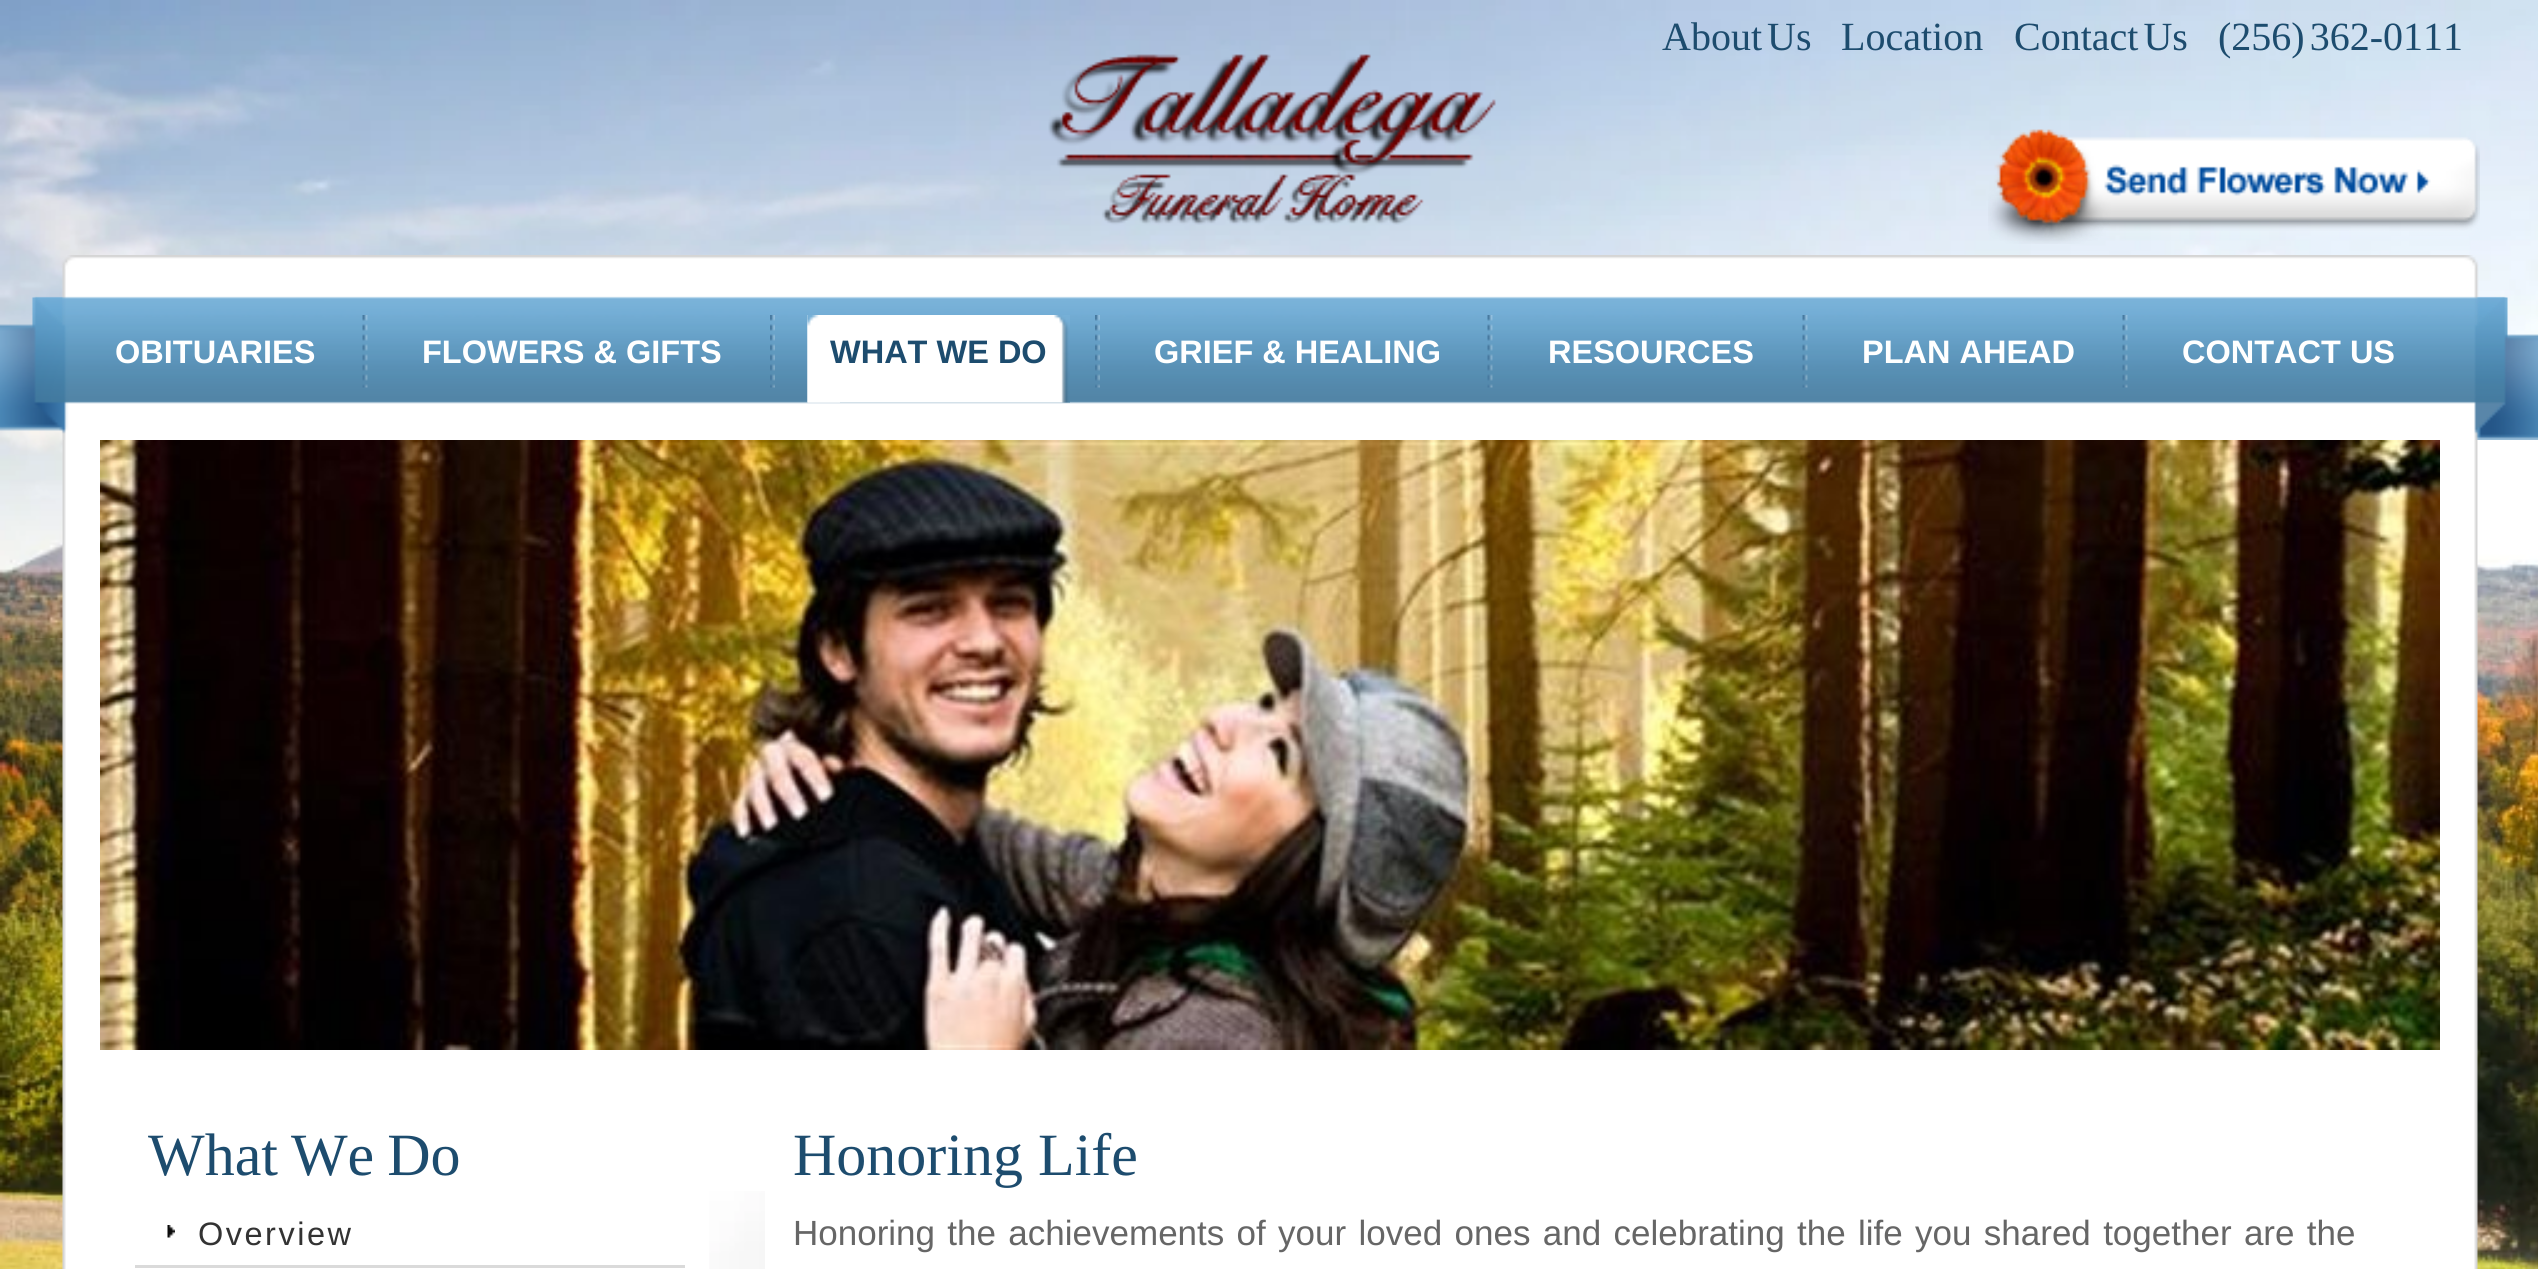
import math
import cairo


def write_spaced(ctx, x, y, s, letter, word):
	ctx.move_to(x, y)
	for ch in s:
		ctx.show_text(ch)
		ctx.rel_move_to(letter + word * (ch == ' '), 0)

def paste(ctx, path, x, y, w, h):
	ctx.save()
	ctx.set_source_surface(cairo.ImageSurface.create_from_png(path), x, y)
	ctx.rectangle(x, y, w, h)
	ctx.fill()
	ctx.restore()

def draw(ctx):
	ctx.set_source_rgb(1, 1, 1)
	ctx.paint()
	paste(ctx, 'media/1.png', 0, 0, 2538, 1269)
	ctx.select_font_face('Liberation Serif')
	ctx.set_font_size(40)
	ctx.set_source_rgb(0.114, 0.298, 0.431)
	write_spaced(ctx, 1662, 50, 'About Us', 0, -5)
	ctx.move_to(1841, 50)
	ctx.show_text('Location')
	write_spaced(ctx, 2014, 50, 'Contact Us', 0, -5)
	write_spaced(ctx, 2218, 50, '(256) 362-0111', 0, -5)
	paste(ctx, 'media/2.png', 1048, 54, 448, 171)
	paste(ctx, 'media/3.png', 1988, 129, 492, 115)
	paste(ctx, 'media/5.png', 32, 297, 2476, 42)
	paste(ctx, 'media/4.png', 0, 255, 2538, 185)
	ctx.select_font_face('Liberation Sans', cairo.FONT_SLANT_NORMAL, cairo.FONT_WEIGHT_BOLD)
	ctx.set_font_size(32.5)
	ctx.set_source_rgb(1, 1, 1)
	ctx.move_to(115, 363)
	ctx.show_text('OBITUARIES')
	paste(ctx, 'media/6.png', 362, 315, 6, 73)
	ctx.move_to(422, 363)
	ctx.show_text('FLOWERS & GIFTS')
	paste(ctx, 'media/7.png', 770, 315, 5, 73)
	paste(ctx, 'media/8.png', 807, 315, 263, 88)
	paste(ctx, 'media/9.png', 807, 315, 33, 88)
	ctx.set_source_rgb(0.114, 0.298, 0.431)
	ctx.move_to(830, 363)
	ctx.show_text('WHAT WE DO')
	paste(ctx, 'media/7.png', 1095, 315, 5, 73)
	ctx.set_source_rgb(1, 1, 1)
	ctx.move_to(1154, 363)
	ctx.show_text('GRIEF & HEALING')
	paste(ctx, 'media/10.png', 1487, 315, 6, 73)
	ctx.move_to(1548, 363)
	ctx.show_text('RESOURCES')
	paste(ctx, 'media/11.png', 1802, 315, 6, 73)
	ctx.move_to(1862, 363)
	ctx.show_text('PLAN AHEAD')
	paste(ctx, 'media/12.png', 2122, 315, 6, 73)
	ctx.move_to(2182, 363)
	ctx.show_text('CONTACT US')
	paste(ctx, 'media/13.png', 62, 440, 2416, 829)
	paste(ctx, 'media/14.png', 100, 440, 2340, 610)
	paste(ctx, 'media/15.png', 709, 1191, 56, 78)
	ctx.select_font_face('Liberation Serif')
	ctx.set_font_size(60)
	ctx.set_source_rgb(0.114, 0.298, 0.431)
	write_spaced(ctx, 148, 1175, 'What We Do', 0, -2)
	paste(ctx, 'media/16.png', 167, 1225, 8, 13)
	ctx.set_source_rgb(0.855, 0.855, 0.855)
	ctx.rectangle(135, 1265, 550, 3)
	ctx.fill()
	ctx.select_font_face('Liberation Sans')
	ctx.set_font_size(32.5)
	ctx.set_source_rgb(0.2, 0.2, 0.2)
	write_spaced(ctx, 198, 1245, 'Overview', 2.5, 0)
	ctx.select_font_face('Liberation Serif')
	ctx.set_font_size(60)
	ctx.set_source_rgb(0.114, 0.298, 0.431)
	ctx.move_to(793, 1175)
	ctx.show_text('Honoring Life')
	ctx.select_font_face('Liberation Sans')
	ctx.set_font_size(35)
	ctx.set_source_rgb(0.4, 0.4, 0.4)
	write_spaced(ctx, 793, 1245, 'Honoring the achievements of your loved ones and celebrating the life you shared together are the', 0, 2.6)


surface = cairo.ImageSurface(cairo.FORMAT_RGB24, 2538, 1269)
ctx = cairo.Context(surface)
options = cairo.FontOptions()
options.set_hint_metrics(cairo.HINT_METRICS_OFF)
options.set_hint_style(cairo.HINT_STYLE_NONE)
ctx.set_font_options(options)
ctx.set_miter_limit(4)
draw(ctx)
surface.write_to_png('image.png')
